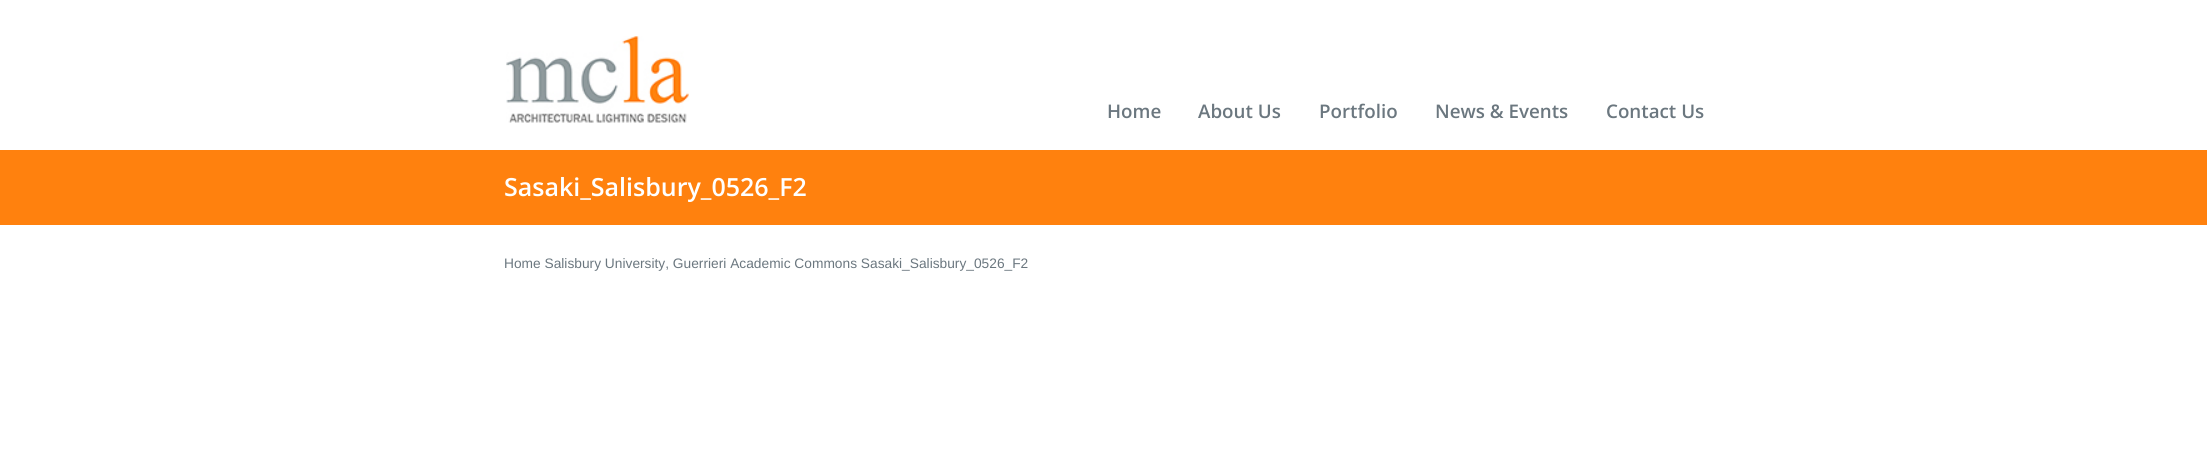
import math
import cairo


def paste(ctx, path, x, y, w, h):
	ctx.save()
	ctx.set_source_surface(cairo.ImageSurface.create_from_png(path), x, y)
	ctx.rectangle(x, y, w, h)
	ctx.fill()
	ctx.restore()

def draw(ctx):
	ctx.set_source_rgb(1, 1, 1)
	ctx.paint()
	paste(ctx, 'media/1.png', 506, 36, 183, 87)
	ctx.select_font_face('Open Sans SemiBold')
	ctx.set_font_size(18.75)
	ctx.set_source_rgb(0.42, 0.467, 0.498)
	for x, y, s in [
		(1107, 118, 'Home'),
		(1198, 118, 'About Us'),
		(1319, 118, 'Portfolio'),
		(1435, 118, 'News & Events'),
		(1606, 118, 'Contact Us'),
	]:
		ctx.move_to(x, y)
		ctx.show_text(s)
	ctx.set_source_rgb(1, 0.506, 0.055)
	ctx.rectangle(0, 150, 2207, 75)
	ctx.fill()
	ctx.set_font_size(25)
	ctx.set_source_rgb(1, 1, 1)
	ctx.move_to(504, 196)
	ctx.show_text('Sasaki_Salisbury_0526_F2')
	ctx.select_font_face('Liberation Sans')
	ctx.set_font_size(13.75)
	ctx.set_source_rgb(0.42, 0.467, 0.498)
	ctx.move_to(504, 268)
	ctx.show_text('Home Salisbury University, Guerrieri Academic Commons Sasaki_Salisbury_0526_F2')


surface = cairo.ImageSurface(cairo.FORMAT_RGB24, 2207, 450)
ctx = cairo.Context(surface)
options = cairo.FontOptions()
options.set_hint_metrics(cairo.HINT_METRICS_OFF)
options.set_hint_style(cairo.HINT_STYLE_NONE)
ctx.set_font_options(options)
ctx.set_miter_limit(4)
draw(ctx)
surface.write_to_png('image.png')
